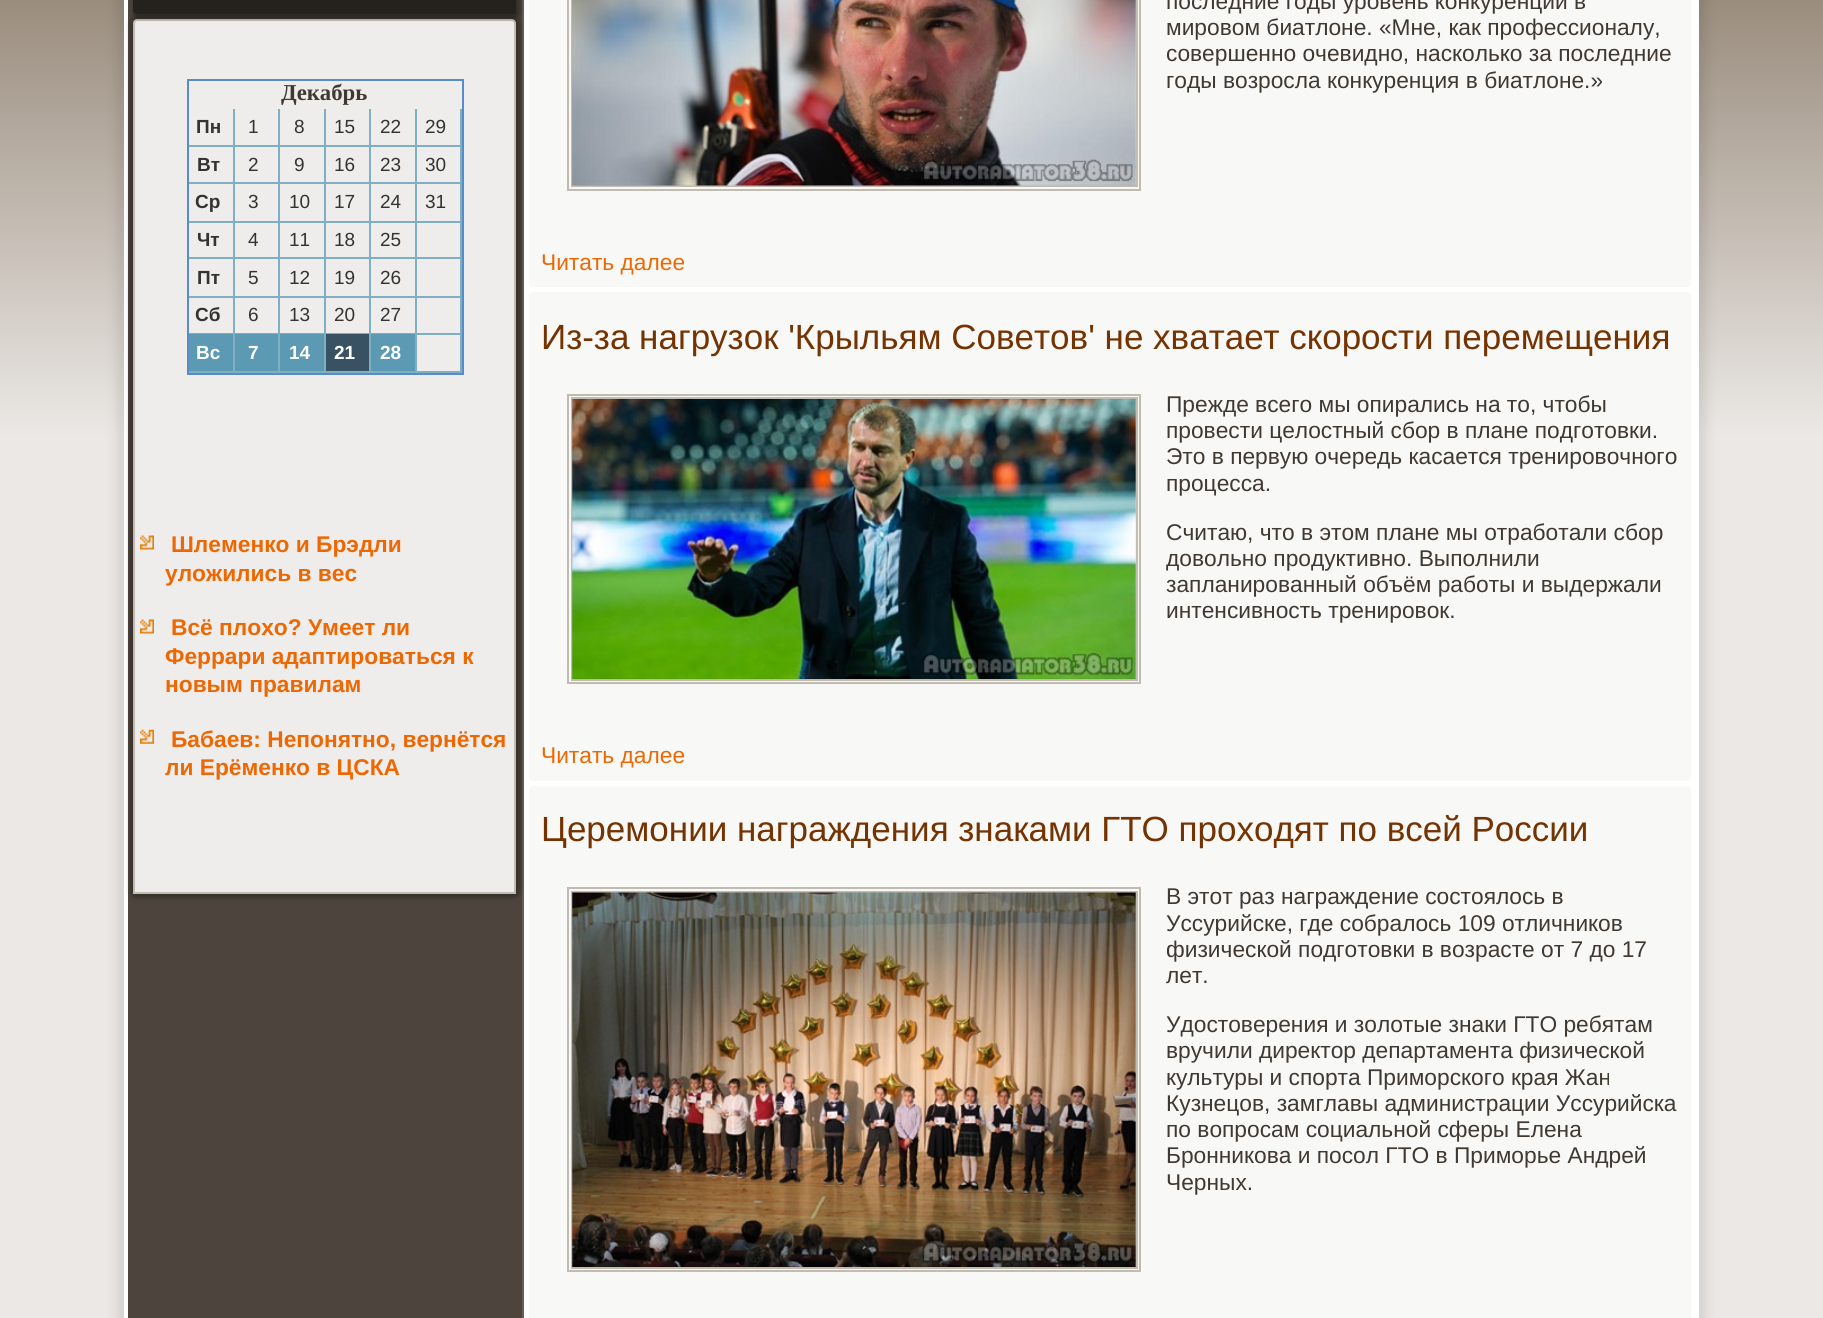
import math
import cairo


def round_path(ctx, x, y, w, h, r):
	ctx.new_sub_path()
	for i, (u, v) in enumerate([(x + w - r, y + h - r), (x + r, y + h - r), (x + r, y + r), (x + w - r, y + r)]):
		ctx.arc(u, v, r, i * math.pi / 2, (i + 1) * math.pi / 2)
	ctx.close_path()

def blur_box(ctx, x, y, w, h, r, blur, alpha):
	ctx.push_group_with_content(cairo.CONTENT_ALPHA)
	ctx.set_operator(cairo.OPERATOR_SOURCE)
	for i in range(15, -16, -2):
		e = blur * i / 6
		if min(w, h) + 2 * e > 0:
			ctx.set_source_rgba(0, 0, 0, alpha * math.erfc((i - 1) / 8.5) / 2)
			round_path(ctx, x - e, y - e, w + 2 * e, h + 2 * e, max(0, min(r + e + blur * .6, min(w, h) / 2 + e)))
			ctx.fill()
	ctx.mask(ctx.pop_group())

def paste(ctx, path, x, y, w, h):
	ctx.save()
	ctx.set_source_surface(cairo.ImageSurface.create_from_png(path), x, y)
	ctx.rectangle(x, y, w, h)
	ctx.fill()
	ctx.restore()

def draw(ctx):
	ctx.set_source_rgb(1, 1, 1)
	ctx.paint()
	gradient = cairo.LinearGradient(912, 0, 912, 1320)
	gradient.add_color_stop_rgba(0, 0.604, 0.553, 0.494, 1)
	gradient.add_color_stop_rgba(0.33, 0.922, 0.91, 0.898, 1)
	ctx.set_source(gradient)
	ctx.rectangle(0, 0, 1823, 1318)
	ctx.fill()
	ctx.set_source_rgb(0, 0, 0)
	blur_box(ctx, 117, -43, 1589, 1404, 25, 6, 0.1)
	ctx.set_source_rgb(1, 1, 1)
	ctx.rectangle(124, 0, 1575, 1318)
	ctx.fill()
	ctx.set_source_rgb(0.302, 0.271, 0.239)
	ctx.rectangle(128, 0, 394, 1318)
	ctx.fill()
	ctx.set_source_rgb(0.404, 0.365, 0.318)
	ctx.rectangle(522, 0, 2, 1318)
	ctx.fill()
	ctx.set_source_rgb(0, 0, 0)
	blur_box(ctx, 130, 16, 390, 882, 7, 2.5, 0.3)
	ctx.set_source_rgb(0.937, 0.929, 0.922)
	ctx.new_path()
	ctx.move_to(137, 20)
	ctx.line_to(512, 20)
	ctx.curve_to(513.5, 20, 515, 21.5, 515, 23)
	ctx.line_to(515, 893)
	ctx.line_to(134, 893)
	ctx.line_to(134, 23)
	ctx.curve_to(134, 21.5, 135.5, 20, 137, 20)
	ctx.close_path()
	ctx.fill_preserve()
	ctx.set_source_rgb(0.761, 0.733, 0.698)
	ctx.stroke()
	ctx.set_source_rgb(0, 0, 0)
	blur_box(ctx, 133, -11, 387, 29, 5, 2, 0.35)
	ctx.set_source_rgb(0.145, 0.129, 0.114)
	ctx.new_path()
	ctx.move_to(137, -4)
	ctx.line_to(516, -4)
	ctx.line_to(516, 14)
	ctx.line_to(137, 14)
	ctx.curve_to(135, 14, 133, 12, 133, 10)
	ctx.line_to(133, 0)
	ctx.curve_to(133, -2, 135, -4, 137, -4)
	ctx.close_path()
	ctx.fill()
	ctx.rectangle(188, 80, 275, 294)
	ctx.set_source_rgb(0.345, 0.549, 0.784)
	ctx.stroke()
	ctx.select_font_face('Liberation Serif', cairo.FONT_SLANT_NORMAL, cairo.FONT_WEIGHT_BOLD)
	ctx.set_font_size(22.75)
	ctx.set_source_rgb(0.247, 0.224, 0.192)
	ctx.move_to(281, 100)
	ctx.show_text('Декабрь')
	ctx.set_source_rgb(0.498, 0.686, 0.761)
	ctx.rectangle(233, 109, 2, 113)
	ctx.fill()
	ctx.rectangle(189, 145, 46, 2)
	ctx.fill()
	ctx.select_font_face('Liberation Sans', cairo.FONT_SLANT_NORMAL, cairo.FONT_WEIGHT_BOLD)
	ctx.set_font_size(19)
	ctx.set_source_rgb(0.2, 0.2, 0.2)
	ctx.move_to(196, 133)
	ctx.show_text('Пн')
	ctx.set_source_rgb(0.498, 0.686, 0.761)
	ctx.rectangle(278, 109, 2, 113)
	ctx.fill()
	ctx.rectangle(235, 145, 45, 2)
	ctx.fill()
	ctx.select_font_face('Liberation Sans')
	ctx.set_source_rgb(0.2, 0.2, 0.2)
	ctx.move_to(248, 133)
	ctx.show_text('1')
	ctx.set_source_rgb(0.498, 0.686, 0.761)
	ctx.rectangle(324, 109, 2, 113)
	ctx.fill()
	ctx.rectangle(280, 145, 46, 2)
	ctx.fill()
	ctx.set_source_rgb(0.2, 0.2, 0.2)
	ctx.move_to(294, 133)
	ctx.show_text('8')
	ctx.set_source_rgb(0.498, 0.686, 0.761)
	ctx.rectangle(369, 109, 2, 113)
	ctx.fill()
	ctx.rectangle(326, 145, 45, 2)
	ctx.fill()
	ctx.set_source_rgb(0.2, 0.2, 0.2)
	ctx.move_to(334, 133)
	ctx.show_text('15')
	ctx.set_source_rgb(0.498, 0.686, 0.761)
	ctx.rectangle(415, 109, 2, 113)
	ctx.fill()
	ctx.rectangle(371, 145, 46, 2)
	ctx.fill()
	ctx.set_source_rgb(0.2, 0.2, 0.2)
	ctx.move_to(380, 133)
	ctx.show_text('22')
	ctx.set_source_rgb(0.498, 0.686, 0.761)
	ctx.rectangle(460, 109, 2, 113)
	ctx.fill()
	ctx.rectangle(417, 145, 45, 2)
	ctx.fill()
	ctx.set_source_rgb(0.2, 0.2, 0.2)
	ctx.move_to(425, 133)
	ctx.show_text('29')
	ctx.set_source_rgb(0.498, 0.686, 0.761)
	ctx.rectangle(189, 182, 273, 2)
	ctx.fill()
	ctx.select_font_face('Liberation Sans', cairo.FONT_SLANT_NORMAL, cairo.FONT_WEIGHT_BOLD)
	ctx.set_source_rgb(0.2, 0.2, 0.2)
	ctx.move_to(197, 171)
	ctx.show_text('Вт')
	ctx.select_font_face('Liberation Sans')
	for x, y, s in [
		(248, 171, '2'),
		(294, 171, '9'),
		(334, 171, '16'),
		(380, 171, '23'),
		(425, 171, '30'),
	]:
		ctx.move_to(x, y)
		ctx.show_text(s)
	ctx.set_source_rgb(0.498, 0.686, 0.761)
	ctx.rectangle(189, 221, 273, 2)
	ctx.fill()
	ctx.select_font_face('Liberation Sans', cairo.FONT_SLANT_NORMAL, cairo.FONT_WEIGHT_BOLD)
	ctx.set_source_rgb(0.2, 0.2, 0.2)
	ctx.move_to(195, 208)
	ctx.show_text('Ср')
	ctx.select_font_face('Liberation Sans')
	for x, y, s in [
		(248, 208, '3'),
		(289, 208, '10'),
		(334, 208, '17'),
		(380, 208, '24'),
		(425, 208, '31'),
	]:
		ctx.move_to(x, y)
		ctx.show_text(s)
	ctx.set_source_rgb(0.498, 0.686, 0.761)
	ctx.rectangle(233, 222, 2, 151)
	ctx.fill()
	ctx.rectangle(189, 257, 46, 2)
	ctx.fill()
	ctx.select_font_face('Liberation Sans', cairo.FONT_SLANT_NORMAL, cairo.FONT_WEIGHT_BOLD)
	ctx.set_source_rgb(0.2, 0.2, 0.2)
	ctx.move_to(197, 246)
	ctx.show_text('Чт')
	ctx.set_source_rgb(0.498, 0.686, 0.761)
	ctx.rectangle(278, 222, 2, 151)
	ctx.fill()
	ctx.rectangle(235, 257, 45, 2)
	ctx.fill()
	ctx.select_font_face('Liberation Sans')
	ctx.set_source_rgb(0.2, 0.2, 0.2)
	ctx.move_to(248, 246)
	ctx.show_text('4')
	ctx.set_source_rgb(0.498, 0.686, 0.761)
	ctx.rectangle(324, 222, 2, 151)
	ctx.fill()
	ctx.rectangle(280, 257, 46, 2)
	ctx.fill()
	ctx.set_source_rgb(0.2, 0.2, 0.2)
	ctx.move_to(289, 246)
	ctx.show_text('11')
	ctx.set_source_rgb(0.498, 0.686, 0.761)
	ctx.rectangle(369, 222, 2, 151)
	ctx.fill()
	ctx.rectangle(326, 257, 45, 2)
	ctx.fill()
	ctx.set_source_rgb(0.2, 0.2, 0.2)
	ctx.move_to(334, 246)
	ctx.show_text('18')
	ctx.set_source_rgb(0.498, 0.686, 0.761)
	ctx.rectangle(415, 222, 2, 151)
	ctx.fill()
	ctx.rectangle(371, 257, 46, 2)
	ctx.fill()
	ctx.set_source_rgb(0.2, 0.2, 0.2)
	ctx.move_to(380, 246)
	ctx.show_text('25')
	ctx.set_source_rgb(0.498, 0.686, 0.761)
	ctx.rectangle(460, 222, 2, 112)
	ctx.rectangle(417, 257, 45, 2)
	ctx.rectangle(189, 296, 273, 2)
	ctx.fill()
	ctx.select_font_face('Liberation Sans', cairo.FONT_SLANT_NORMAL, cairo.FONT_WEIGHT_BOLD)
	ctx.set_source_rgb(0.2, 0.2, 0.2)
	ctx.move_to(197, 284)
	ctx.show_text('Пт')
	ctx.select_font_face('Liberation Sans')
	for x, y, s in [
		(248, 284, '5'),
		(289, 284, '12'),
		(334, 284, '19'),
		(380, 284, '26'),
	]:
		ctx.move_to(x, y)
		ctx.show_text(s)
	ctx.set_source_rgb(0.498, 0.686, 0.761)
	ctx.rectangle(189, 333, 228, 1)
	ctx.fill()
	ctx.select_font_face('Liberation Sans', cairo.FONT_SLANT_NORMAL, cairo.FONT_WEIGHT_BOLD)
	ctx.set_source_rgb(0.2, 0.2, 0.2)
	ctx.move_to(195, 321)
	ctx.show_text('Сб')
	ctx.select_font_face('Liberation Sans')
	for x, y, s in [
		(248, 321, '6'),
		(289, 321, '13'),
		(334, 321, '20'),
		(380, 321, '27'),
	]:
		ctx.move_to(x, y)
		ctx.show_text(s)
	ctx.set_source_rgb(0.498, 0.686, 0.761)
	ctx.rectangle(417, 333, 45, 2)
	ctx.fill()
	ctx.set_source_rgb(0.361, 0.6, 0.698)
	ctx.rectangle(189, 334, 44, 37)
	ctx.fill()
	ctx.set_source_rgb(0.498, 0.686, 0.761)
	ctx.rectangle(189, 371, 228, 2)
	ctx.fill()
	ctx.select_font_face('Liberation Sans', cairo.FONT_SLANT_NORMAL, cairo.FONT_WEIGHT_BOLD)
	ctx.set_source_rgb(1, 1, 1)
	ctx.move_to(196, 359)
	ctx.show_text('Вс')
	ctx.set_source_rgb(0.361, 0.6, 0.698)
	ctx.rectangle(235, 334, 43, 37)
	ctx.fill()
	ctx.set_source_rgb(1, 1, 1)
	ctx.move_to(248, 359)
	ctx.show_text('7')
	ctx.set_source_rgb(0.361, 0.6, 0.698)
	ctx.rectangle(280, 334, 44, 37)
	ctx.fill()
	ctx.set_source_rgb(1, 1, 1)
	ctx.move_to(289, 359)
	ctx.show_text('14')
	ctx.set_source_rgb(0.224, 0.322, 0.388)
	ctx.rectangle(326, 334, 43, 37)
	ctx.fill()
	ctx.set_source_rgb(1, 1, 1)
	ctx.move_to(334, 359)
	ctx.show_text('21')
	ctx.set_source_rgb(0.361, 0.6, 0.698)
	ctx.rectangle(371, 334, 44, 37)
	ctx.fill()
	ctx.set_source_rgb(1, 1, 1)
	ctx.move_to(380, 359)
	ctx.show_text('28')
	ctx.set_source_rgb(0.498, 0.686, 0.761)
	ctx.rectangle(460, 334, 2, 39)
	ctx.fill()
	ctx.rectangle(417, 371, 45, 2)
	ctx.fill()
	paste(ctx, 'media/1.png', 140, 535, 14, 15)
	ctx.set_font_size(22.75)
	ctx.set_source_rgb(0.929, 0.408, 0.008)
	ctx.move_to(171, 552)
	ctx.show_text('Шлеменко и Брэдли')
	ctx.move_to(165, 581)
	ctx.show_text('уложились в вес')
	paste(ctx, 'media/1.png', 140, 619, 14, 15)
	for x, y, s in [
		(171, 635, 'Всё плохо? Умеет ли'),
		(165, 664, 'Феррари адаптироваться к'),
		(165, 692, 'новым правилам'),
	]:
		ctx.move_to(x, y)
		ctx.show_text(s)
	paste(ctx, 'media/2.png', 140, 729, 14, 15)
	ctx.move_to(171, 747)
	ctx.show_text('Бабаев: Непонятно, вернётся')
	ctx.move_to(165, 775)
	ctx.show_text('ли Ерёменко в ЦСКА')
	ctx.set_source_rgba(0.937, 0.929, 0.922, 0.4)
	round_path(ctx, 529, -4, 1162, 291, 4)
	ctx.fill()
	ctx.rectangle(568, -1, 572, 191)
	ctx.set_source_rgb(0.761, 0.733, 0.698)
	ctx.stroke()
	ctx.rectangle(572, -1, 565, 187)
	ctx.stroke()
	paste(ctx, 'media/3.png', 572, 0, 564, 186)
	ctx.select_font_face('Liberation Sans')
	ctx.set_source_rgb(0.247, 0.224, 0.192)
	for x, y, s in [
		(1166, 9, 'последние годы уровень конкуренции в'),
		(1166, 35, 'мировом биатлоне. «Мне, как профессионалу,'),
		(1166, 61, 'совершенно очевидно, насколько за последние'),
		(1166, 88, 'годы возросла конкуренция в биатлоне.»'),
	]:
		ctx.move_to(x, y)
		ctx.show_text(s)
	ctx.set_source_rgb(0.929, 0.408, 0.008)
	ctx.move_to(541, 270)
	ctx.show_text('Читать далее')
	ctx.set_source_rgba(0.937, 0.929, 0.922, 0.4)
	round_path(ctx, 529, 292, 1162, 489, 4)
	ctx.fill()
	ctx.set_font_size(35)
	ctx.set_source_rgb(0.455, 0.2, 0.004)
	ctx.move_to(541, 349)
	ctx.show_text('Из-за нагрузок \'Крыльям Советов\' не хватает скорости перемещения')
	ctx.rectangle(568, 395, 572, 288)
	ctx.set_source_rgb(0.761, 0.733, 0.698)
	ctx.stroke()
	ctx.rectangle(572, 398, 565, 282)
	ctx.stroke()
	paste(ctx, 'media/4.png', 572, 399, 564, 280)
	ctx.set_font_size(22.75)
	ctx.set_source_rgb(0.247, 0.224, 0.192)
	for x, y, s in [
		(1166, 412, 'Прежде всего мы опирались на то, чтобы'),
		(1166, 438, 'провести целостный сбор в плане подготовки.'),
		(1166, 464, 'Это в первую очередь касается тренировочного'),
		(1166, 491, 'процесса.'),
		(1166, 540, 'Считаю, что в этом плане мы отработали сбор'),
		(1166, 566, 'довольно продуктивно. Выполнили'),
		(1166, 592, 'запланированный объём работы и выдержали'),
		(1166, 618, 'интенсивность тренировок.'),
	]:
		ctx.move_to(x, y)
		ctx.show_text(s)
	ctx.set_source_rgb(0.929, 0.408, 0.008)
	ctx.move_to(541, 763)
	ctx.show_text('Читать далее')
	ctx.set_source_rgba(0.937, 0.929, 0.922, 0.4)
	round_path(ctx, 529, 786, 1162, 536, 4)
	ctx.fill()
	ctx.set_font_size(35)
	ctx.set_source_rgb(0.455, 0.2, 0.004)
	ctx.move_to(541, 841)
	ctx.show_text('Церемонии награждения знаками ГТО проходят по всей России')
	ctx.rectangle(568, 888, 572, 383)
	ctx.set_source_rgb(0.761, 0.733, 0.698)
	ctx.stroke()
	ctx.rectangle(572, 892, 565, 376)
	ctx.stroke()
	paste(ctx, 'media/5.png', 572, 892, 564, 375)
	ctx.set_font_size(22.75)
	ctx.set_source_rgb(0.247, 0.224, 0.192)
	for x, y, s in [
		(1166, 904, 'В этот раз награждение состоялось в'),
		(1166, 931, 'Уссурийске, где собралось 109 отличников'),
		(1166, 957, 'физической подготовки в возрасте от 7 до 17'),
		(1166, 983, 'лет.'),
		(1166, 1032, 'Удостоверения и золотые знаки ГТО ребятам'),
		(1166, 1058, 'вручили директор департамента физической'),
		(1166, 1085, 'культуры и спорта Приморского края Жан'),
		(1166, 1111, 'Кузнецов, замглавы администрации Уссурийска'),
		(1166, 1137, 'по вопросам социальной сферы Елена'),
		(1166, 1163, 'Бронникова и посол ГТО в Приморье Андрей'),
		(1166, 1190, 'Черных.'),
	]:
		ctx.move_to(x, y)
		ctx.show_text(s)


surface = cairo.ImageSurface(cairo.FORMAT_RGB24, 1823, 1318)
ctx = cairo.Context(surface)
options = cairo.FontOptions()
options.set_hint_metrics(cairo.HINT_METRICS_OFF)
options.set_hint_style(cairo.HINT_STYLE_NONE)
ctx.set_font_options(options)
ctx.set_miter_limit(4)
draw(ctx)
surface.write_to_png('image.png')
